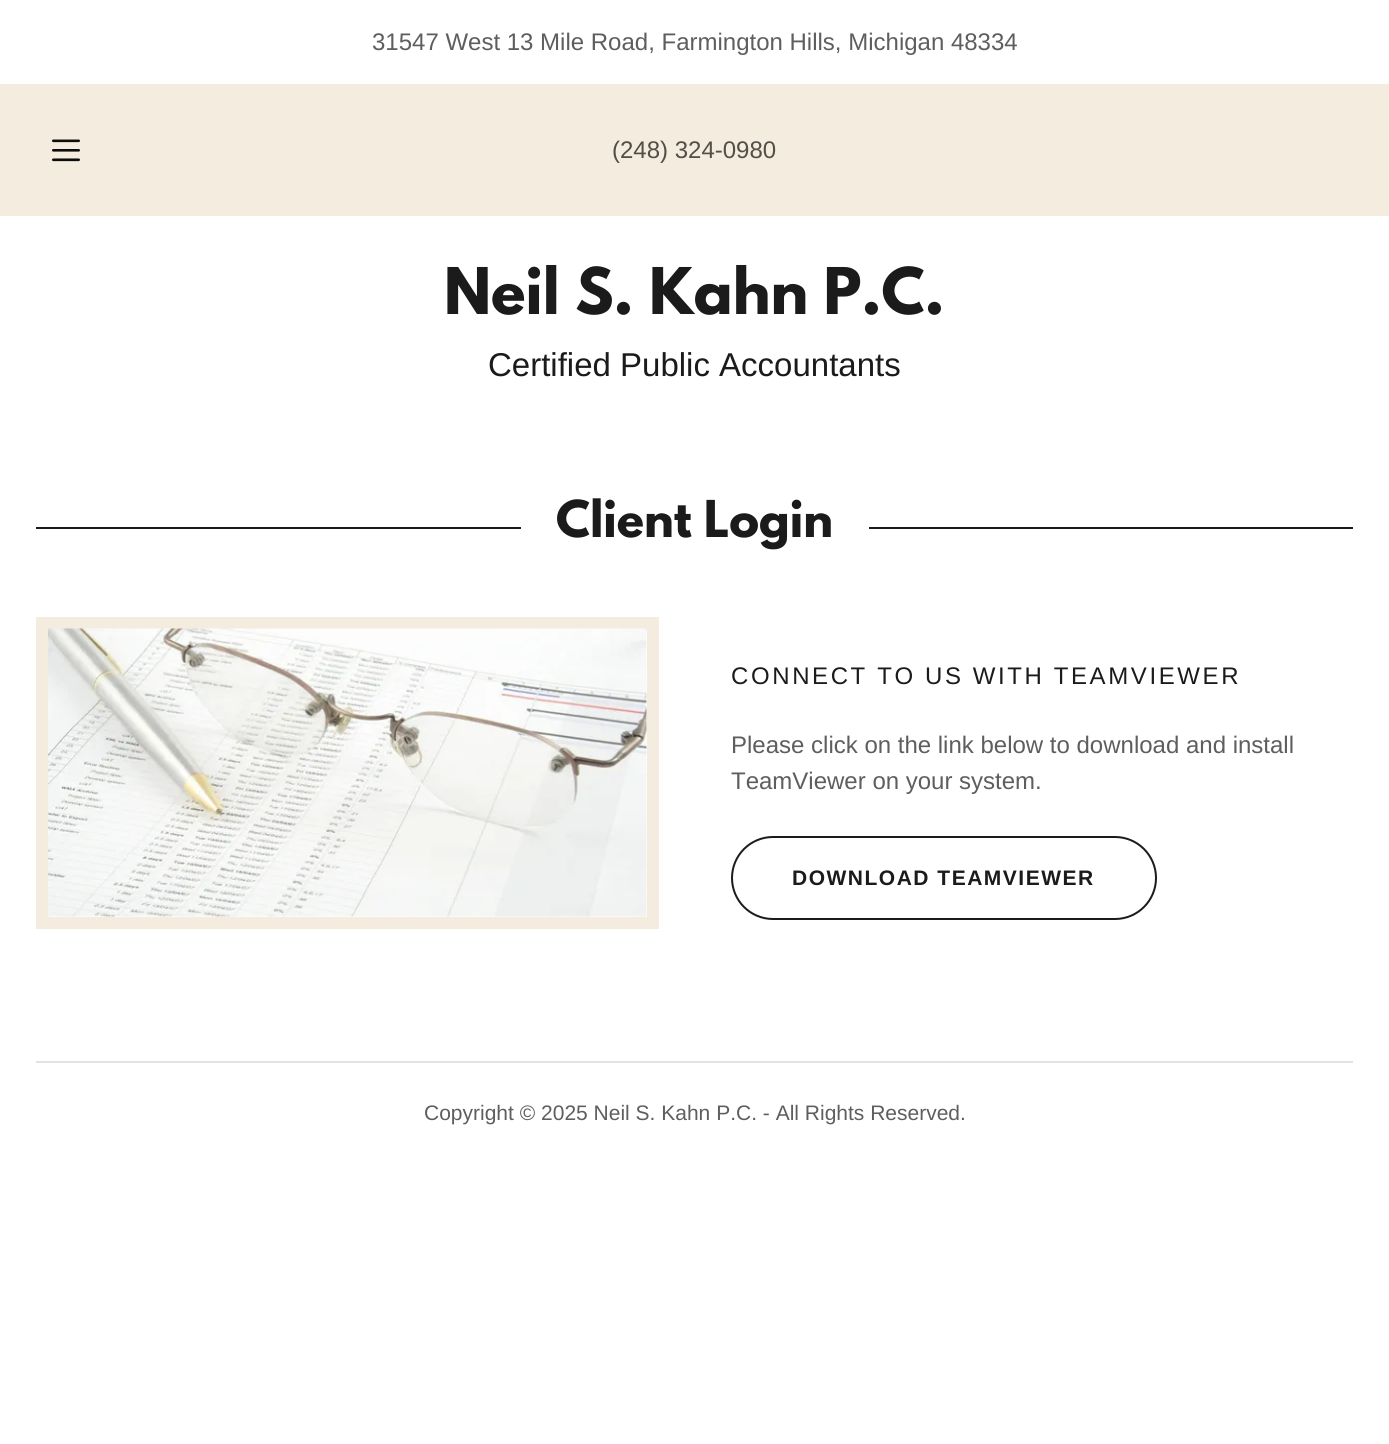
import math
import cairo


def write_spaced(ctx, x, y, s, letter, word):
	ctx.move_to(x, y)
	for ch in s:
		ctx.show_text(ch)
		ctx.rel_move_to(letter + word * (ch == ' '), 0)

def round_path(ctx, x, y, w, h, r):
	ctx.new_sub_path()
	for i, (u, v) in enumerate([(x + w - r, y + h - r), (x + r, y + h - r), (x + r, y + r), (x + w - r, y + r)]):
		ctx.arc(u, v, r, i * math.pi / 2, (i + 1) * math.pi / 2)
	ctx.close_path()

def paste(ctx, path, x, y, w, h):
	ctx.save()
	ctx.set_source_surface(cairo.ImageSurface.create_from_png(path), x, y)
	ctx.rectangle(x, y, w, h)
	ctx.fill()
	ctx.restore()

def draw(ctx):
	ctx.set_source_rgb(1, 1, 1)
	ctx.paint()
	ctx.select_font_face('Liberation Sans')
	ctx.set_font_size(24)
	ctx.set_source_rgb(0.369, 0.369, 0.369)
	ctx.move_to(372, 50)
	ctx.show_text('31547 West 13 Mile Road, Farmington Hills, Michigan 48334')
	ctx.set_source_rgb(0.957, 0.922, 0.871)
	ctx.rectangle(0, 84, 1389, 132)
	ctx.fill()
	paste(ctx, 'media/1.png', 52, 139, 28, 23)
	ctx.set_source_rgb(0.322, 0.306, 0.282)
	ctx.move_to(612, 158)
	ctx.show_text('(248) 324-0980')
	ctx.select_font_face('League Spartan', cairo.FONT_SLANT_NORMAL, cairo.FONT_WEIGHT_BOLD)
	ctx.set_font_size(57)
	ctx.set_source_rgb(0.106, 0.106, 0.106)
	ctx.move_to(444, 314)
	ctx.show_text('Neil S. Kahn P.C.')
	ctx.select_font_face('Liberation Sans')
	ctx.set_font_size(33)
	ctx.move_to(488, 376)
	ctx.show_text('Certified Public Accountants')
	ctx.rectangle(36, 527, 485, 2)
	ctx.fill()
	ctx.select_font_face('League Spartan', cairo.FONT_SLANT_NORMAL, cairo.FONT_WEIGHT_BOLD)
	ctx.set_font_size(45)
	ctx.move_to(556, 537)
	ctx.show_text('Client Login')
	ctx.rectangle(869, 527, 484, 2)
	ctx.fill()
	ctx.rectangle(42, 623, 611, 300)
	ctx.set_source_rgb(0.957, 0.922, 0.871)
	ctx.set_line_width(12)
	ctx.stroke()
	paste(ctx, 'media/2.png', 48, 628, 599, 289)
	ctx.select_font_face('Liberation Sans')
	ctx.set_font_size(24)
	ctx.set_source_rgb(0.106, 0.106, 0.106)
	write_spaced(ctx, 731, 684, 'CONNECT TO US WITH TEAMVIEWER', 2.6, 0)
	ctx.set_source_rgb(0.369, 0.369, 0.369)
	ctx.move_to(731, 753)
	ctx.show_text('Please click on the link below to download and install')
	ctx.move_to(731, 789)
	ctx.show_text('TeamViewer on your system.')
	round_path(ctx, 732, 837, 424, 82, 41)
	ctx.set_source_rgb(0.106, 0.106, 0.106)
	ctx.set_line_width(2)
	ctx.stroke()
	ctx.select_font_face('Liberation Sans', cairo.FONT_SLANT_NORMAL, cairo.FONT_WEIGHT_BOLD)
	ctx.set_font_size(21)
	write_spaced(ctx, 792, 885, 'DOWNLOAD TEAMVIEWER', 1.5, 0)
	ctx.set_source_rgb(0.886, 0.886, 0.886)
	ctx.rectangle(36, 1061, 1317, 2)
	ctx.fill()
	ctx.select_font_face('Liberation Sans')
	ctx.set_source_rgb(0.369, 0.369, 0.369)
	ctx.move_to(424, 1120)
	ctx.show_text('Copyright © 2025 Neil S. Kahn P.C. - All Rights Reserved.')


surface = cairo.ImageSurface(cairo.FORMAT_RGB24, 1389, 1444)
ctx = cairo.Context(surface)
options = cairo.FontOptions()
options.set_hint_metrics(cairo.HINT_METRICS_OFF)
options.set_hint_style(cairo.HINT_STYLE_NONE)
ctx.set_font_options(options)
ctx.set_miter_limit(4)
draw(ctx)
surface.write_to_png('image.png')
